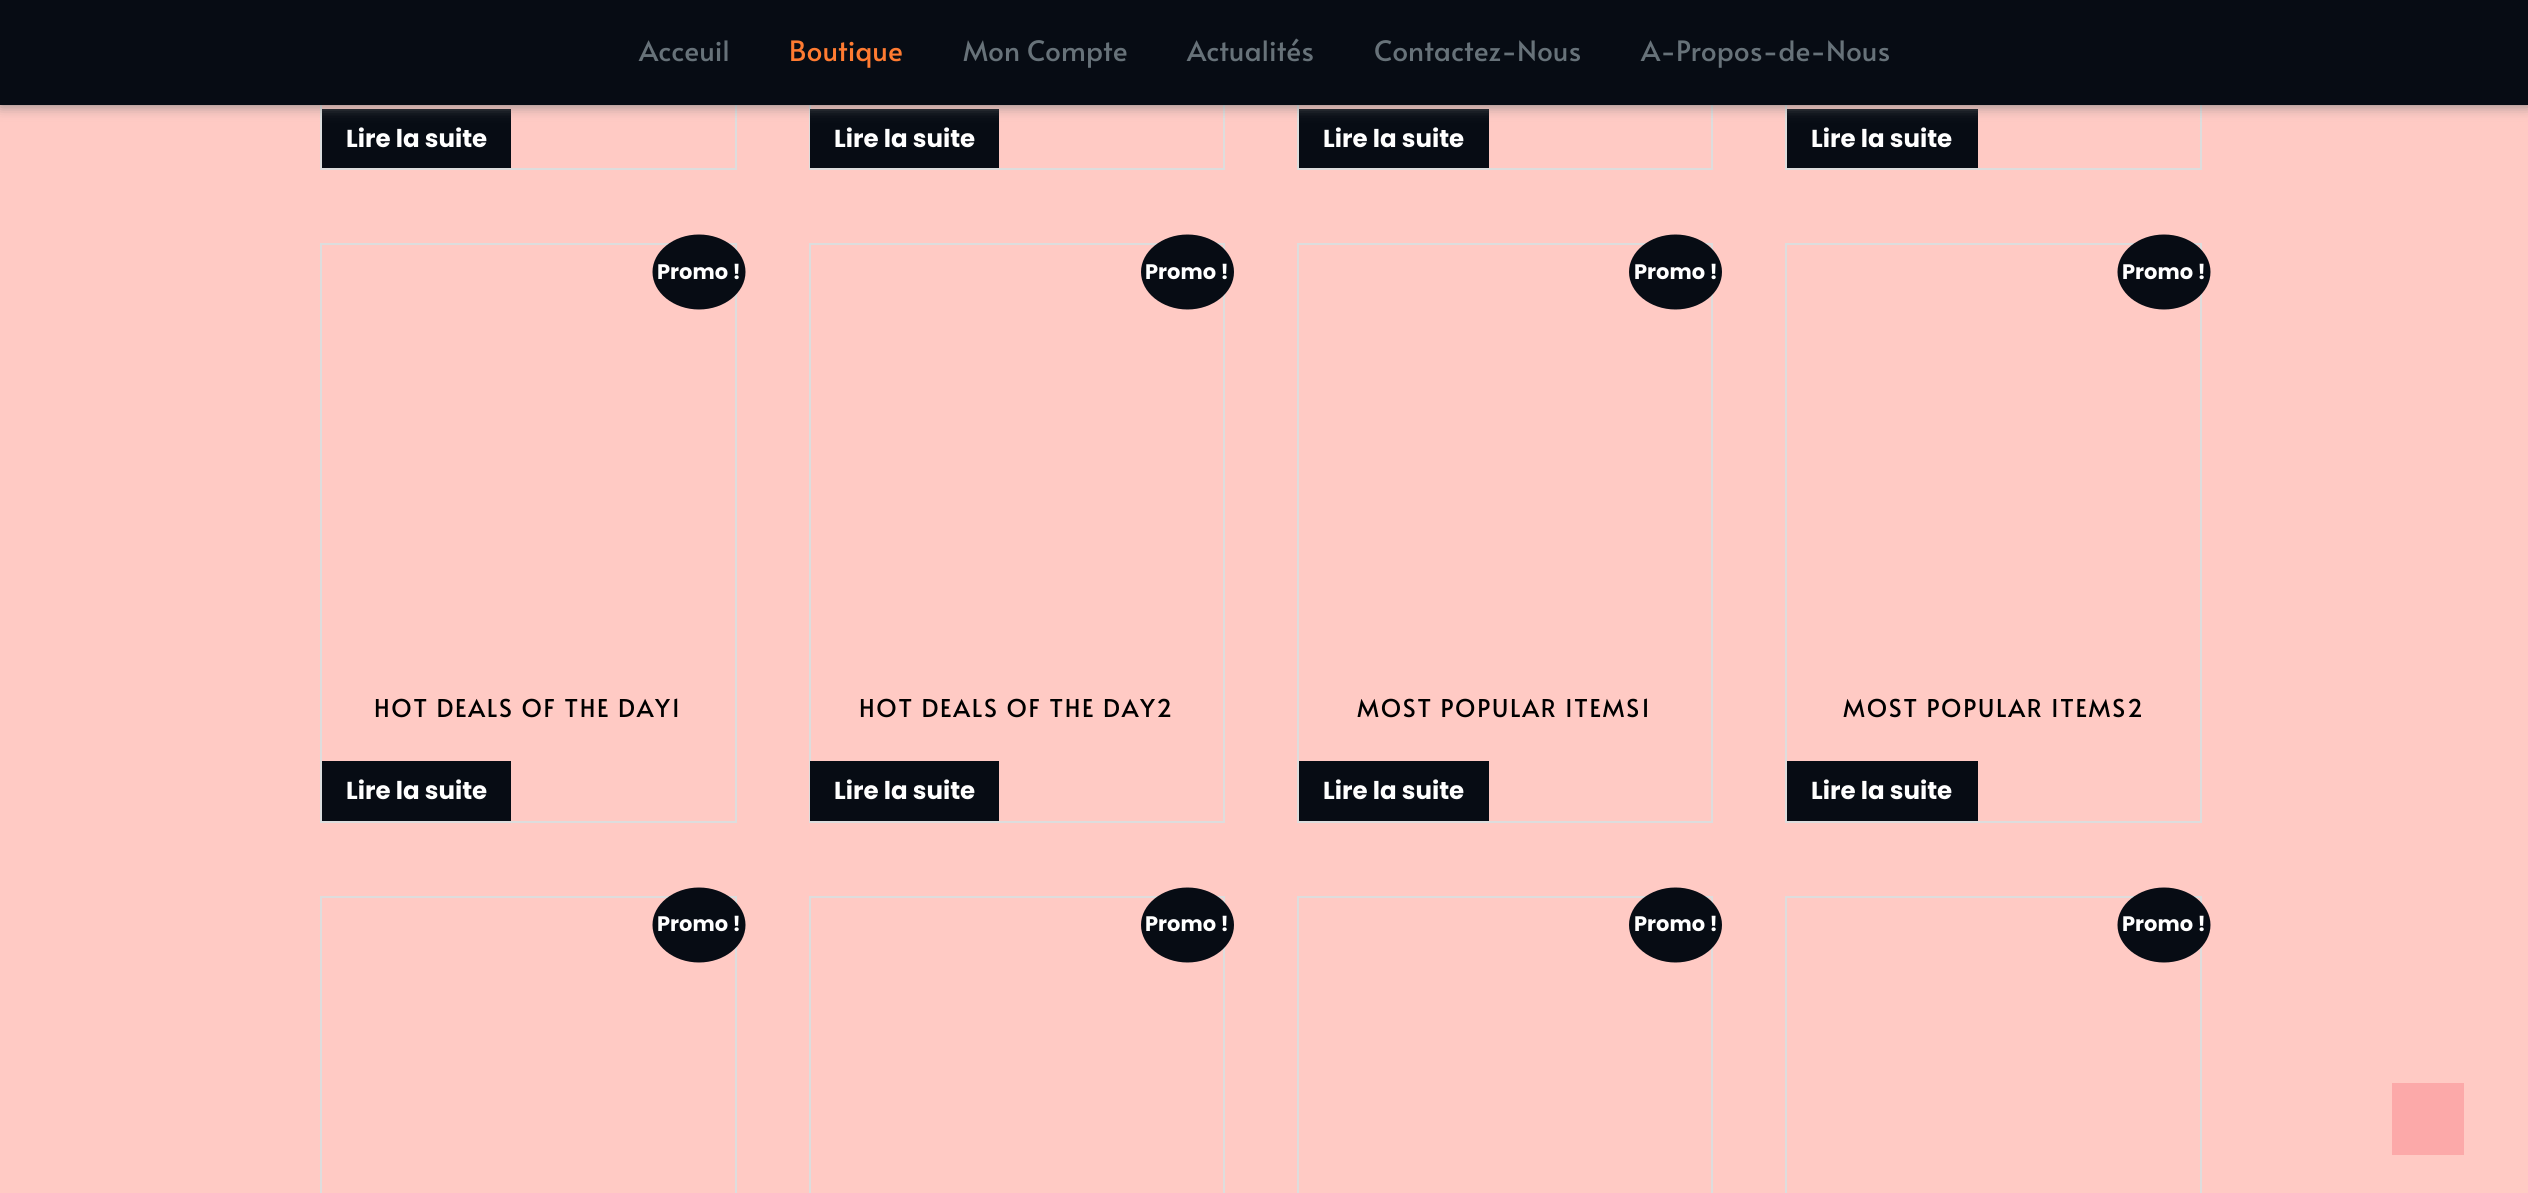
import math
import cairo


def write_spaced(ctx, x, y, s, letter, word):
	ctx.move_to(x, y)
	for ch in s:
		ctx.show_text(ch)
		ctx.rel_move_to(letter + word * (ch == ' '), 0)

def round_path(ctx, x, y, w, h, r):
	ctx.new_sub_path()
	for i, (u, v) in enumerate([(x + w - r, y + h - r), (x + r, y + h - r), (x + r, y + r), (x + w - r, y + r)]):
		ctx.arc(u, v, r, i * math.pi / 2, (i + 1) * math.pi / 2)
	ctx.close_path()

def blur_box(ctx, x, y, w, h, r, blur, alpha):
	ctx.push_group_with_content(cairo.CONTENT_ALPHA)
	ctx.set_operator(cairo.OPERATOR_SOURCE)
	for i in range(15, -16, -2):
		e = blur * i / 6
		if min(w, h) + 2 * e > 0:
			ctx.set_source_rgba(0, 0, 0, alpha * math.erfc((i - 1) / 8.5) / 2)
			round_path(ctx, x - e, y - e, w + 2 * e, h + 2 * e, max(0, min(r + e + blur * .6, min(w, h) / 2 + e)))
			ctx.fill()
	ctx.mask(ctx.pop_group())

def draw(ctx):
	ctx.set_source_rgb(1, 0.792, 0.769)
	ctx.paint()
	ctx.rectangle(321, -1, 415, 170)
	ctx.set_source_rgb(0.867, 0.867, 0.867)
	ctx.stroke()
	ctx.set_source_rgb(0.031, 0.047, 0.082)
	ctx.rectangle(322, 109, 189, 59)
	ctx.fill()
	ctx.rectangle(810, -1, 414, 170)
	ctx.set_source_rgb(0.867, 0.867, 0.867)
	ctx.stroke()
	ctx.set_source_rgb(0.031, 0.047, 0.082)
	ctx.rectangle(810, 109, 189, 59)
	ctx.fill()
	ctx.rectangle(1298, -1, 414, 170)
	ctx.set_source_rgb(0.867, 0.867, 0.867)
	ctx.stroke()
	ctx.set_source_rgb(0.031, 0.047, 0.082)
	ctx.rectangle(1299, 109, 190, 59)
	ctx.fill()
	ctx.rectangle(1786, -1, 415, 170)
	ctx.set_source_rgb(0.867, 0.867, 0.867)
	ctx.stroke()
	ctx.set_source_rgb(0.031, 0.047, 0.082)
	ctx.rectangle(1787, 109, 191, 59)
	ctx.fill()
	ctx.set_source_rgb(0.502, 0.502, 0.502)
	blur_box(ctx, 0, 0, 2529, 105, 0, 7, 1)
	ctx.set_source_rgb(0.031, 0.047, 0.082)
	ctx.rectangle(0, 0, 2528, 105)
	ctx.fill()
	ctx.select_font_face('Alata')
	ctx.set_font_size(28)
	ctx.set_source_rgb(0.404, 0.447, 0.475)
	ctx.move_to(639, 61)
	ctx.show_text('Acceuil')
	ctx.set_source_rgb(1, 0.482, 0.192)
	ctx.move_to(789, 61)
	ctx.show_text('Boutique')
	ctx.set_source_rgb(0.404, 0.447, 0.475)
	for x, y, s in [
		(963, 61, 'Mon Compte'),
		(1187, 61, 'Actualités'),
		(1374, 61, 'Contactez-Nous'),
		(1641, 61, 'A-Propos-de-Nous'),
	]:
		ctx.move_to(x, y)
		ctx.show_text(s)
	ctx.select_font_face('Poppins', cairo.FONT_SLANT_NORMAL, cairo.FONT_WEIGHT_BOLD)
	ctx.set_font_size(24.5)
	ctx.set_source_rgb(1, 1, 1)
	for x, y, s in [
		(346, 147, 'Lire la suite'),
		(834, 147, 'Lire la suite'),
		(1323, 147, 'Lire la suite'),
		(1811, 147, 'Lire la suite'),
	]:
		ctx.move_to(x, y)
		ctx.show_text(s)
	ctx.rectangle(321, 244, 415, 578)
	ctx.set_source_rgb(0.867, 0.867, 0.867)
	ctx.stroke()
	ctx.set_source_rgb(0.031, 0.047, 0.082)
	ctx.new_path()
	ctx.move_to(699, 234.5)
	ctx.curve_to(724.5, 234.5, 745.5, 251.5, 745.5, 272)
	ctx.curve_to(745.5, 292.5, 724.5, 309.5, 699, 309.5)
	ctx.curve_to(673.5, 309.5, 652.5, 292.5, 652.5, 272)
	ctx.curve_to(652.5, 251.5, 673.5, 234.5, 699, 234.5)
	ctx.close_path()
	ctx.fill()
	ctx.set_font_size(21)
	ctx.set_source_rgb(1, 1, 1)
	ctx.move_to(657, 279)
	ctx.show_text('Promo !')
	ctx.select_font_face('Alata')
	ctx.set_font_size(24.5)
	ctx.set_source_rgb(0, 0, 0)
	write_spaced(ctx, 374, 717, 'HOT DEALS OF THE DAY1', 1.75, 0)
	ctx.set_source_rgb(0.031, 0.047, 0.082)
	ctx.rectangle(322, 761, 189, 60)
	ctx.fill()
	ctx.select_font_face('Poppins', cairo.FONT_SLANT_NORMAL, cairo.FONT_WEIGHT_BOLD)
	ctx.set_source_rgb(1, 1, 1)
	ctx.move_to(346, 799)
	ctx.show_text('Lire la suite')
	ctx.rectangle(810, 244, 414, 578)
	ctx.set_source_rgb(0.867, 0.867, 0.867)
	ctx.stroke()
	ctx.set_source_rgb(0.031, 0.047, 0.082)
	ctx.new_path()
	ctx.move_to(1187.5, 234.5)
	ctx.curve_to(1213, 234.5, 1234, 251.5, 1234, 272)
	ctx.curve_to(1234, 292.5, 1213, 309.5, 1187.5, 309.5)
	ctx.curve_to(1162, 309.5, 1141, 292.5, 1141, 272)
	ctx.curve_to(1141, 251.5, 1162, 234.5, 1187.5, 234.5)
	ctx.close_path()
	ctx.fill()
	ctx.set_font_size(21)
	ctx.set_source_rgb(1, 1, 1)
	ctx.move_to(1145, 279)
	ctx.show_text('Promo !')
	ctx.select_font_face('Alata')
	ctx.set_font_size(24.5)
	ctx.set_source_rgb(0, 0, 0)
	write_spaced(ctx, 859, 717, 'HOT DEALS OF THE DAY2', 1.75, 0)
	ctx.set_source_rgb(0.031, 0.047, 0.082)
	ctx.rectangle(810, 761, 189, 60)
	ctx.fill()
	ctx.select_font_face('Poppins', cairo.FONT_SLANT_NORMAL, cairo.FONT_WEIGHT_BOLD)
	ctx.set_source_rgb(1, 1, 1)
	ctx.move_to(834, 799)
	ctx.show_text('Lire la suite')
	ctx.rectangle(1298, 244, 414, 578)
	ctx.set_source_rgb(0.867, 0.867, 0.867)
	ctx.stroke()
	ctx.set_source_rgb(0.031, 0.047, 0.082)
	ctx.new_path()
	ctx.move_to(1675.5, 234.5)
	ctx.curve_to(1701, 234.5, 1722, 251.5, 1722, 272)
	ctx.curve_to(1722, 292.5, 1701, 309.5, 1675.5, 309.5)
	ctx.curve_to(1650, 309.5, 1629, 292.5, 1629, 272)
	ctx.curve_to(1629, 251.5, 1650, 234.5, 1675.5, 234.5)
	ctx.close_path()
	ctx.fill()
	ctx.set_font_size(21)
	ctx.set_source_rgb(1, 1, 1)
	ctx.move_to(1634, 279)
	ctx.show_text('Promo !')
	ctx.select_font_face('Alata')
	ctx.set_font_size(24.5)
	ctx.set_source_rgb(0, 0, 0)
	write_spaced(ctx, 1357, 717, 'MOST POPULAR ITEMS1', 1.75, 0)
	ctx.set_source_rgb(0.031, 0.047, 0.082)
	ctx.rectangle(1299, 761, 190, 60)
	ctx.fill()
	ctx.select_font_face('Poppins', cairo.FONT_SLANT_NORMAL, cairo.FONT_WEIGHT_BOLD)
	ctx.set_source_rgb(1, 1, 1)
	ctx.move_to(1323, 799)
	ctx.show_text('Lire la suite')
	ctx.rectangle(1786, 244, 415, 578)
	ctx.set_source_rgb(0.867, 0.867, 0.867)
	ctx.stroke()
	ctx.set_source_rgb(0.031, 0.047, 0.082)
	ctx.new_path()
	ctx.move_to(2164, 234.5)
	ctx.curve_to(2189.5, 234.5, 2210.5, 251.5, 2210.5, 272)
	ctx.curve_to(2210.5, 292.5, 2189.5, 309.5, 2164, 309.5)
	ctx.curve_to(2138.5, 309.5, 2117.5, 292.5, 2117.5, 272)
	ctx.curve_to(2117.5, 251.5, 2138.5, 234.5, 2164, 234.5)
	ctx.close_path()
	ctx.fill()
	ctx.set_font_size(21)
	ctx.set_source_rgb(1, 1, 1)
	ctx.move_to(2122, 279)
	ctx.show_text('Promo !')
	ctx.select_font_face('Alata')
	ctx.set_font_size(24.5)
	ctx.set_source_rgb(0, 0, 0)
	write_spaced(ctx, 1843, 717, 'MOST POPULAR ITEMS2', 1.75, 0)
	ctx.set_source_rgb(0.031, 0.047, 0.082)
	ctx.rectangle(1787, 761, 191, 60)
	ctx.fill()
	ctx.select_font_face('Poppins', cairo.FONT_SLANT_NORMAL, cairo.FONT_WEIGHT_BOLD)
	ctx.set_source_rgb(1, 1, 1)
	ctx.move_to(1811, 799)
	ctx.show_text('Lire la suite')
	ctx.rectangle(321, 897, 415, 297)
	ctx.set_source_rgb(0.867, 0.867, 0.867)
	ctx.stroke()
	ctx.set_source_rgb(0.031, 0.047, 0.082)
	ctx.new_path()
	ctx.move_to(699, 887.5)
	ctx.curve_to(724.5, 887.5, 745.5, 904.5, 745.5, 925)
	ctx.curve_to(745.5, 945.5, 724.5, 962.5, 699, 962.5)
	ctx.curve_to(673.5, 962.5, 652.5, 945.5, 652.5, 925)
	ctx.curve_to(652.5, 904.5, 673.5, 887.5, 699, 887.5)
	ctx.close_path()
	ctx.fill()
	ctx.set_font_size(21)
	ctx.set_source_rgb(1, 1, 1)
	ctx.move_to(657, 931)
	ctx.show_text('Promo !')
	ctx.rectangle(810, 897, 414, 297)
	ctx.set_source_rgb(0.867, 0.867, 0.867)
	ctx.stroke()
	ctx.set_source_rgb(0.031, 0.047, 0.082)
	ctx.new_path()
	ctx.move_to(1187.5, 887.5)
	ctx.curve_to(1213, 887.5, 1234, 904.5, 1234, 925)
	ctx.curve_to(1234, 945.5, 1213, 962.5, 1187.5, 962.5)
	ctx.curve_to(1162, 962.5, 1141, 945.5, 1141, 925)
	ctx.curve_to(1141, 904.5, 1162, 887.5, 1187.5, 887.5)
	ctx.close_path()
	ctx.fill()
	ctx.set_source_rgb(1, 1, 1)
	ctx.move_to(1145, 931)
	ctx.show_text('Promo !')
	ctx.rectangle(1298, 897, 414, 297)
	ctx.set_source_rgb(0.867, 0.867, 0.867)
	ctx.stroke()
	ctx.set_source_rgb(0.031, 0.047, 0.082)
	ctx.new_path()
	ctx.move_to(1675.5, 887.5)
	ctx.curve_to(1701, 887.5, 1722, 904.5, 1722, 925)
	ctx.curve_to(1722, 945.5, 1701, 962.5, 1675.5, 962.5)
	ctx.curve_to(1650, 962.5, 1629, 945.5, 1629, 925)
	ctx.curve_to(1629, 904.5, 1650, 887.5, 1675.5, 887.5)
	ctx.close_path()
	ctx.fill()
	ctx.set_source_rgb(1, 1, 1)
	ctx.move_to(1634, 931)
	ctx.show_text('Promo !')
	ctx.rectangle(1786, 897, 415, 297)
	ctx.set_source_rgb(0.867, 0.867, 0.867)
	ctx.stroke()
	ctx.set_source_rgb(0.031, 0.047, 0.082)
	ctx.new_path()
	ctx.move_to(2164, 887.5)
	ctx.curve_to(2189.5, 887.5, 2210.5, 904.5, 2210.5, 925)
	ctx.curve_to(2210.5, 945.5, 2189.5, 962.5, 2164, 962.5)
	ctx.curve_to(2138.5, 962.5, 2117.5, 945.5, 2117.5, 925)
	ctx.curve_to(2117.5, 904.5, 2138.5, 887.5, 2164, 887.5)
	ctx.close_path()
	ctx.fill()
	ctx.set_source_rgb(1, 1, 1)
	ctx.move_to(2122, 931)
	ctx.show_text('Promo !')
	ctx.set_source_rgb(0.988, 0.663, 0.663)
	ctx.rectangle(2392, 1083, 72, 72)
	ctx.fill()


surface = cairo.ImageSurface(cairo.FORMAT_RGB24, 2528, 1193)
ctx = cairo.Context(surface)
options = cairo.FontOptions()
options.set_hint_metrics(cairo.HINT_METRICS_OFF)
options.set_hint_style(cairo.HINT_STYLE_NONE)
ctx.set_font_options(options)
ctx.set_miter_limit(4)
draw(ctx)
surface.write_to_png('image.png')
